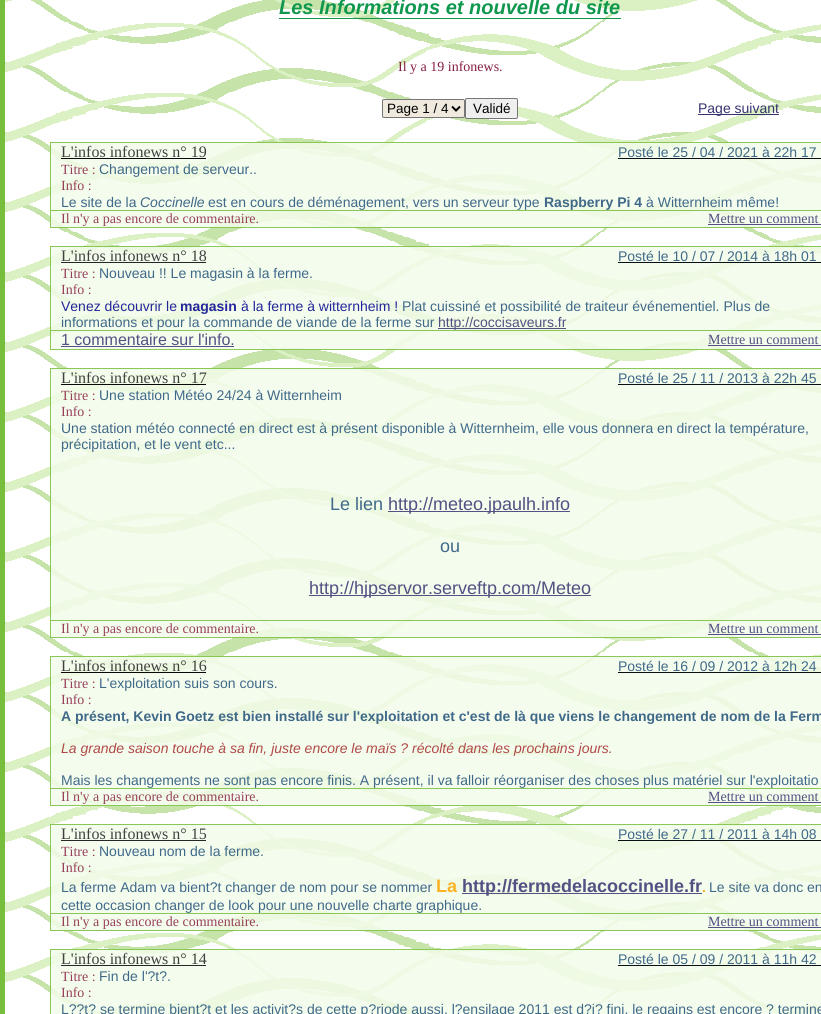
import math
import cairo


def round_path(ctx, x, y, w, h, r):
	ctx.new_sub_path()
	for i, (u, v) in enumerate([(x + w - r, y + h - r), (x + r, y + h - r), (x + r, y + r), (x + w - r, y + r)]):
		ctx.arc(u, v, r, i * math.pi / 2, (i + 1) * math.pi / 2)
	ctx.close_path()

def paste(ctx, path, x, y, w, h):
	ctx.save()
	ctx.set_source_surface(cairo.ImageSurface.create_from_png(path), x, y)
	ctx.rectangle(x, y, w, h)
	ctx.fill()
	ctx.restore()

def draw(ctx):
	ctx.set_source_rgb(0.467, 0.745, 0.235)
	ctx.paint()
	paste(ctx, 'media/1.png', 5, 0, 816, 1014)
	ctx.select_font_face('Liberation Sans', cairo.FONT_SLANT_ITALIC, cairo.FONT_WEIGHT_BOLD)
	ctx.set_font_size(20)
	ctx.set_source_rgb(0.059, 0.592, 0.306)
	ctx.move_to(279, 14)
	ctx.show_text('Les Informations et nouvelle du site')
	ctx.rectangle(279, 18, 342, 1)
	ctx.fill()
	ctx.select_font_face('Liberation Serif')
	ctx.set_font_size(14)
	ctx.set_source_rgb(0.529, 0.122, 0.251)
	ctx.move_to(398, 71)
	ctx.show_text('Il y a 19 infonews.')
	ctx.set_source_rgb(0.937, 0.914, 0.871)
	round_path(ctx, 382.5, 99.5, 82, 18, 1.5)
	ctx.fill_preserve()
	ctx.set_source_rgb(0.463, 0.463, 0.463)
	ctx.set_line_width(1)
	ctx.stroke()
	ctx.new_path()
	ctx.move_to(452, 106.5)
	ctx.line_to(456, 110.5)
	ctx.line_to(460, 106.5)
	ctx.set_source_rgb(0, 0, 0)
	ctx.set_line_width(2)
	ctx.stroke()
	ctx.select_font_face('Liberation Sans')
	ctx.set_font_size(13.5)
	ctx.move_to(387, 113)
	ctx.show_text('Page 1 / 4')
	ctx.set_source_rgb(0.937, 0.937, 0.937)
	round_path(ctx, 465.5, 98.5, 52, 20, 1.5)
	ctx.fill_preserve()
	ctx.set_source_rgb(0.463, 0.463, 0.463)
	ctx.set_line_width(1)
	ctx.stroke()
	ctx.set_source_rgb(0, 0, 0)
	ctx.move_to(473, 113)
	ctx.show_text('Validé')
	ctx.set_source_rgb(0.212, 0.2, 0.439)
	ctx.rectangle(698, 114, 81, 1)
	ctx.fill()
	ctx.set_font_size(14)
	ctx.move_to(698, 113)
	ctx.show_text('Page suivant')
	ctx.set_source_rgba(0.949, 0.984, 0.918, 0.85)
	ctx.rectangle(50, 142, 771, 86)
	ctx.fill()
	ctx.set_source_rgba(0.467, 0.745, 0.235, 0.85)
	ctx.rectangle(50, 142, 771, 1)
	ctx.fill()
	ctx.rectangle(50, 143, 1, 18)
	ctx.fill()
	ctx.select_font_face('Liberation Serif')
	ctx.set_font_size(16)
	ctx.set_source_rgb(0.255, 0.259, 0.251)
	ctx.move_to(61, 157)
	ctx.show_text('L\'infos infonews n° 19')
	ctx.set_source_rgb(0.039, 0.039, 0.039)
	ctx.rectangle(61, 158, 145, 1)
	ctx.fill()
	ctx.select_font_face('Liberation Sans')
	ctx.set_font_size(14)
	ctx.set_source_rgb(0.251, 0.412, 0.537)
	ctx.move_to(618, 157)
	ctx.show_text('Posté le 25 / 04 / 2021 à 22h 17')
	ctx.set_source_rgb(0.039, 0.063, 0.078)
	ctx.rectangle(618, 158, 203, 1)
	ctx.fill()
	ctx.set_source_rgba(0.467, 0.745, 0.235, 0.85)
	ctx.rectangle(50, 161, 1, 49)
	ctx.fill()
	ctx.select_font_face('Liberation Serif')
	ctx.set_source_rgb(0.592, 0.251, 0.353)
	ctx.move_to(61, 174)
	ctx.show_text('Titre :')
	ctx.select_font_face('Liberation Sans')
	ctx.set_source_rgb(0.251, 0.412, 0.537)
	ctx.move_to(99, 174)
	ctx.show_text('Changement de serveur..')
	ctx.select_font_face('Liberation Serif')
	ctx.set_source_rgb(0.592, 0.251, 0.353)
	ctx.move_to(61, 190)
	ctx.show_text('Info :')
	ctx.select_font_face('Liberation Sans')
	ctx.set_source_rgb(0.251, 0.412, 0.537)
	ctx.move_to(61, 207)
	ctx.show_text('Le site de la')
	ctx.select_font_face('Liberation Sans', cairo.FONT_SLANT_ITALIC)
	ctx.move_to(140, 207)
	ctx.show_text('Coccinelle')
	ctx.select_font_face('Liberation Sans')
	ctx.move_to(208, 207)
	ctx.show_text('est en cours de déménagement, vers un serveur type')
	ctx.select_font_face('Liberation Sans', cairo.FONT_SLANT_NORMAL, cairo.FONT_WEIGHT_BOLD)
	ctx.move_to(544, 207)
	ctx.show_text('Raspberry Pi 4')
	ctx.select_font_face('Liberation Sans')
	ctx.move_to(646, 207)
	ctx.show_text('à Witternheim même!')
	ctx.set_source_rgba(0.467, 0.745, 0.235, 0.85)
	ctx.rectangle(50, 210, 771, 1)
	ctx.fill()
	ctx.rectangle(50, 211, 1, 16)
	ctx.fill()
	ctx.select_font_face('Liberation Serif')
	ctx.set_source_rgb(0.592, 0.251, 0.353)
	ctx.move_to(61, 223)
	ctx.show_text('Il n\'y a pas encore de commentaire.')
	ctx.set_source_rgb(0.322, 0.318, 0.514)
	ctx.move_to(708, 223)
	ctx.show_text('Mettre un comment')
	ctx.set_source_rgba(0.212, 0.2, 0.439, 0.85)
	ctx.rectangle(708, 224, 113, 1)
	ctx.fill()
	ctx.set_source_rgba(0.467, 0.745, 0.235, 0.85)
	ctx.rectangle(50, 227, 771, 1)
	ctx.fill()
	ctx.set_source_rgba(0.949, 0.984, 0.918, 0.85)
	ctx.rectangle(50, 246, 771, 104)
	ctx.fill()
	ctx.set_source_rgba(0.467, 0.745, 0.235, 0.85)
	ctx.rectangle(50, 246, 771, 1)
	ctx.fill()
	ctx.rectangle(50, 247, 1, 18)
	ctx.fill()
	ctx.set_font_size(16)
	ctx.set_source_rgb(0.255, 0.259, 0.251)
	ctx.move_to(61, 261)
	ctx.show_text('L\'infos infonews n° 18')
	ctx.set_source_rgb(0.149, 0.149, 0.149)
	ctx.rectangle(61, 262, 145, 1)
	ctx.fill()
	ctx.select_font_face('Liberation Sans')
	ctx.set_font_size(14)
	ctx.set_source_rgb(0.251, 0.412, 0.537)
	ctx.move_to(618, 261)
	ctx.show_text('Posté le 10 / 07 / 2014 à 18h 01')
	ctx.set_source_rgb(0.039, 0.063, 0.078)
	ctx.rectangle(618, 262, 203, 1)
	ctx.fill()
	ctx.set_source_rgba(0.467, 0.745, 0.235, 0.85)
	ctx.rectangle(50, 265, 1, 65)
	ctx.fill()
	ctx.select_font_face('Liberation Serif')
	ctx.set_source_rgb(0.592, 0.251, 0.353)
	ctx.move_to(61, 278)
	ctx.show_text('Titre :')
	ctx.select_font_face('Liberation Sans')
	ctx.set_source_rgb(0.251, 0.412, 0.537)
	ctx.move_to(99, 278)
	ctx.show_text('Nouveau !! Le magasin à la ferme.')
	ctx.select_font_face('Liberation Serif')
	ctx.set_source_rgb(0.592, 0.251, 0.353)
	ctx.move_to(61, 294)
	ctx.show_text('Info :')
	ctx.select_font_face('Liberation Sans')
	ctx.set_source_rgb(0.141, 0.149, 0.6)
	ctx.move_to(61, 311)
	ctx.show_text('Venez découvrir le')
	ctx.select_font_face('Liberation Sans', cairo.FONT_SLANT_NORMAL, cairo.FONT_WEIGHT_BOLD)
	ctx.move_to(180, 311)
	ctx.show_text('magasin')
	ctx.select_font_face('Liberation Sans')
	ctx.move_to(241, 311)
	ctx.show_text('à la ferme à witternheim !')
	ctx.set_source_rgb(0.251, 0.412, 0.537)
	ctx.move_to(402, 311)
	ctx.show_text('Plat cuissiné et possibilité de traiteur événementiel. Plus de')
	ctx.move_to(61, 327)
	ctx.show_text('informations et pour la commande de viande de la ferme sur')
	ctx.set_source_rgba(0.212, 0.2, 0.439, 0.85)
	ctx.rectangle(438, 328, 128, 1)
	ctx.fill()
	ctx.set_source_rgb(0.322, 0.318, 0.514)
	ctx.move_to(438, 327)
	ctx.show_text('http://coccisaveurs.fr')
	ctx.set_source_rgba(0.467, 0.745, 0.235, 0.85)
	ctx.rectangle(50, 330, 771, 1)
	ctx.fill()
	ctx.rectangle(50, 331, 1, 18)
	ctx.fill()
	ctx.set_font_size(16)
	ctx.set_source_rgb(0.322, 0.318, 0.514)
	ctx.move_to(61, 345)
	ctx.show_text('1 commentaire sur l\'info.')
	ctx.set_source_rgb(0.329, 0.322, 0.522)
	ctx.rectangle(61, 346, 173, 1)
	ctx.fill()
	ctx.select_font_face('Liberation Serif')
	ctx.set_font_size(14)
	ctx.set_source_rgb(0.322, 0.318, 0.514)
	ctx.move_to(708, 344)
	ctx.show_text('Mettre un comment')
	ctx.set_source_rgba(0.212, 0.2, 0.439, 0.85)
	ctx.rectangle(708, 345, 113, 1)
	ctx.fill()
	ctx.set_source_rgba(0.467, 0.745, 0.235, 0.85)
	ctx.rectangle(50, 349, 771, 1)
	ctx.fill()
	ctx.set_source_rgba(0.949, 0.984, 0.918, 0.85)
	ctx.rectangle(50, 368, 771, 270)
	ctx.fill()
	ctx.set_source_rgba(0.467, 0.745, 0.235, 0.85)
	ctx.rectangle(50, 368, 771, 1)
	ctx.fill()
	ctx.set_source_rgb(0.545, 0.784, 0.349)
	ctx.rectangle(50, 369, 1, 18)
	ctx.fill()
	ctx.set_font_size(16)
	ctx.set_source_rgb(0.255, 0.259, 0.251)
	ctx.move_to(61, 383)
	ctx.show_text('L\'infos infonews n° 17')
	ctx.set_source_rgb(0.039, 0.039, 0.035)
	ctx.rectangle(61, 384, 145, 1)
	ctx.fill()
	ctx.select_font_face('Liberation Sans')
	ctx.set_font_size(14)
	ctx.set_source_rgb(0.251, 0.412, 0.537)
	ctx.move_to(618, 383)
	ctx.show_text('Posté le 25 / 11 / 2013 à 22h 45')
	ctx.set_source_rgb(0.039, 0.063, 0.078)
	ctx.rectangle(618, 384, 203, 1)
	ctx.fill()
	ctx.set_source_rgba(0.467, 0.745, 0.235, 0.85)
	ctx.rectangle(50, 387, 1, 233)
	ctx.fill()
	ctx.select_font_face('Liberation Serif')
	ctx.set_source_rgb(0.592, 0.251, 0.353)
	ctx.move_to(61, 400)
	ctx.show_text('Titre :')
	ctx.select_font_face('Liberation Sans')
	ctx.set_source_rgb(0.251, 0.412, 0.537)
	ctx.move_to(99, 400)
	ctx.show_text('Une station Météo 24/24 à Witternheim')
	ctx.select_font_face('Liberation Serif')
	ctx.set_source_rgb(0.592, 0.251, 0.353)
	ctx.move_to(61, 416)
	ctx.show_text('Info :')
	ctx.select_font_face('Liberation Sans')
	ctx.set_source_rgb(0.251, 0.412, 0.537)
	ctx.move_to(61, 433)
	ctx.show_text('Une station météo connecté en direct est à présent disponible à Witternheim, elle vous donnera en direct la température,')
	ctx.move_to(61, 449)
	ctx.show_text('précipitation, et le vent etc...')
	ctx.set_font_size(18)
	ctx.move_to(330, 510)
	ctx.show_text('Le lien')
	ctx.set_source_rgb(0.329, 0.322, 0.522)
	ctx.rectangle(388, 511, 182, 1)
	ctx.fill()
	ctx.set_source_rgb(0.322, 0.318, 0.514)
	ctx.move_to(388, 510)
	ctx.show_text('http://meteo.jpaulh.info')
	ctx.set_source_rgb(0.251, 0.412, 0.537)
	ctx.move_to(440, 552)
	ctx.show_text('ou')
	ctx.set_source_rgba(0.212, 0.2, 0.439, 0.85)
	ctx.rectangle(309, 595, 282, 1)
	ctx.fill()
	ctx.set_source_rgb(0.322, 0.318, 0.514)
	ctx.move_to(309, 594)
	ctx.show_text('http://hjpservor.serveftp.com/Meteo')
	ctx.set_source_rgba(0.467, 0.745, 0.235, 0.85)
	ctx.rectangle(50, 620, 771, 1)
	ctx.fill()
	ctx.rectangle(50, 621, 1, 16)
	ctx.fill()
	ctx.select_font_face('Liberation Serif')
	ctx.set_font_size(14)
	ctx.set_source_rgb(0.592, 0.251, 0.353)
	ctx.move_to(61, 633)
	ctx.show_text('Il n\'y a pas encore de commentaire.')
	ctx.set_source_rgb(0.322, 0.318, 0.514)
	ctx.move_to(708, 633)
	ctx.show_text('Mettre un comment')
	ctx.set_source_rgba(0.212, 0.2, 0.439, 0.85)
	ctx.rectangle(708, 634, 113, 1)
	ctx.fill()
	ctx.set_source_rgba(0.467, 0.745, 0.235, 0.85)
	ctx.rectangle(50, 637, 771, 1)
	ctx.fill()
	ctx.set_source_rgba(0.949, 0.984, 0.918, 0.85)
	ctx.rectangle(50, 656, 771, 150)
	ctx.fill()
	ctx.set_source_rgba(0.467, 0.745, 0.235, 0.85)
	ctx.rectangle(50, 656, 771, 1)
	ctx.fill()
	ctx.set_source_rgb(0.545, 0.784, 0.349)
	ctx.rectangle(50, 657, 1, 18)
	ctx.fill()
	ctx.set_font_size(16)
	ctx.set_source_rgb(0.255, 0.259, 0.251)
	ctx.move_to(61, 671)
	ctx.show_text('L\'infos infonews n° 16')
	ctx.set_source_rgb(0.039, 0.039, 0.035)
	ctx.rectangle(61, 672, 145, 1)
	ctx.fill()
	ctx.select_font_face('Liberation Sans')
	ctx.set_font_size(14)
	ctx.set_source_rgb(0.251, 0.412, 0.537)
	ctx.move_to(618, 671)
	ctx.show_text('Posté le 16 / 09 / 2012 à 12h 24')
	ctx.set_source_rgb(0.039, 0.063, 0.078)
	ctx.rectangle(618, 672, 203, 1)
	ctx.fill()
	ctx.set_source_rgba(0.467, 0.745, 0.235, 0.85)
	ctx.rectangle(50, 675, 1, 113)
	ctx.fill()
	ctx.select_font_face('Liberation Serif')
	ctx.set_source_rgb(0.592, 0.251, 0.353)
	ctx.move_to(61, 688)
	ctx.show_text('Titre :')
	ctx.select_font_face('Liberation Sans')
	ctx.set_source_rgb(0.251, 0.412, 0.537)
	ctx.move_to(99, 688)
	ctx.show_text('L\'exploitation suis son cours.')
	ctx.select_font_face('Liberation Serif')
	ctx.set_source_rgb(0.592, 0.251, 0.353)
	ctx.move_to(61, 704)
	ctx.show_text('Info :')
	ctx.select_font_face('Liberation Sans', cairo.FONT_SLANT_NORMAL, cairo.FONT_WEIGHT_BOLD)
	ctx.set_source_rgb(0.251, 0.412, 0.537)
	ctx.move_to(61, 721)
	ctx.show_text('A présent, Kevin Goetz est bien installé sur l\'exploitation et c\'est de là que viens le changement de nom de la Ferm')
	ctx.select_font_face('Liberation Sans', cairo.FONT_SLANT_ITALIC)
	ctx.set_source_rgb(0.694, 0.286, 0.278)
	ctx.move_to(61, 753)
	ctx.show_text('La grande saison touche à sa fin, juste encore le maïs ? récolté dans les prochains jours.')
	ctx.select_font_face('Liberation Sans')
	ctx.set_source_rgb(0.251, 0.412, 0.537)
	ctx.move_to(61, 785)
	ctx.show_text('Mais les changements ne sont pas encore finis. A présent, il va falloir réorganiser des choses plus matériel sur l\'exploitatio')
	ctx.set_source_rgba(0.467, 0.745, 0.235, 0.85)
	ctx.rectangle(50, 788, 771, 1)
	ctx.fill()
	ctx.set_source_rgb(0.545, 0.784, 0.349)
	ctx.rectangle(50, 789, 1, 16)
	ctx.fill()
	ctx.select_font_face('Liberation Serif')
	ctx.set_source_rgb(0.592, 0.251, 0.353)
	ctx.move_to(61, 801)
	ctx.show_text('Il n\'y a pas encore de commentaire.')
	ctx.set_source_rgb(0.322, 0.318, 0.514)
	ctx.move_to(708, 801)
	ctx.show_text('Mettre un comment')
	ctx.set_source_rgba(0.212, 0.2, 0.439, 0.85)
	ctx.rectangle(708, 802, 113, 1)
	ctx.fill()
	ctx.set_source_rgba(0.467, 0.745, 0.235, 0.85)
	ctx.rectangle(50, 805, 771, 1)
	ctx.fill()
	ctx.set_source_rgba(0.949, 0.984, 0.918, 0.85)
	ctx.rectangle(50, 824, 771, 107)
	ctx.fill()
	ctx.set_source_rgba(0.467, 0.745, 0.235, 0.85)
	ctx.rectangle(50, 824, 771, 1)
	ctx.fill()
	ctx.set_source_rgb(0.545, 0.784, 0.349)
	ctx.rectangle(50, 825, 1, 18)
	ctx.fill()
	ctx.set_font_size(16)
	ctx.set_source_rgb(0.255, 0.259, 0.251)
	ctx.move_to(61, 839)
	ctx.show_text('L\'infos infonews n° 15')
	ctx.set_source_rgb(0.149, 0.149, 0.149)
	ctx.rectangle(61, 840, 145, 1)
	ctx.fill()
	ctx.select_font_face('Liberation Sans')
	ctx.set_font_size(14)
	ctx.set_source_rgb(0.251, 0.412, 0.537)
	ctx.move_to(618, 839)
	ctx.show_text('Posté le 27 / 11 / 2011 à 14h 08')
	ctx.set_source_rgb(0.039, 0.063, 0.078)
	ctx.rectangle(618, 840, 203, 1)
	ctx.fill()
	ctx.set_source_rgba(0.467, 0.745, 0.235, 0.85)
	ctx.rectangle(50, 843, 1, 70)
	ctx.fill()
	ctx.select_font_face('Liberation Serif')
	ctx.set_source_rgb(0.592, 0.251, 0.353)
	ctx.move_to(61, 856)
	ctx.show_text('Titre :')
	ctx.select_font_face('Liberation Sans')
	ctx.set_source_rgb(0.251, 0.412, 0.537)
	ctx.move_to(99, 856)
	ctx.show_text('Nouveau nom de la ferme.')
	ctx.select_font_face('Liberation Serif')
	ctx.set_source_rgb(0.592, 0.251, 0.353)
	ctx.move_to(61, 872)
	ctx.show_text('Info :')
	ctx.select_font_face('Liberation Sans')
	ctx.set_source_rgb(0.251, 0.412, 0.537)
	ctx.move_to(61, 892)
	ctx.show_text('La ferme Adam va bient?t changer de nom pour se nommer')
	ctx.select_font_face('Liberation Sans', cairo.FONT_SLANT_NORMAL, cairo.FONT_WEIGHT_BOLD)
	ctx.set_font_size(18)
	ctx.set_source_rgb(0.992, 0.698, 0.137)
	ctx.move_to(436, 892)
	ctx.show_text('La')
	ctx.set_source_rgba(0.212, 0.2, 0.439, 0.85)
	ctx.rectangle(462, 893, 240, 1)
	ctx.fill()
	ctx.set_source_rgb(0.322, 0.318, 0.514)
	ctx.move_to(462, 892)
	ctx.show_text('http://fermedelacoccinelle.fr')
	ctx.set_font_size(14)
	ctx.set_source_rgb(0.992, 0.698, 0.137)
	ctx.move_to(702, 892)
	ctx.show_text('.')
	ctx.select_font_face('Liberation Sans')
	ctx.set_source_rgb(0.251, 0.412, 0.537)
	ctx.move_to(709, 892)
	ctx.show_text('Le site va donc en')
	ctx.move_to(61, 910)
	ctx.show_text('cette occasion changer de look pour une nouvelle charte graphique.')
	ctx.set_source_rgba(0.467, 0.745, 0.235, 0.85)
	ctx.rectangle(50, 913, 771, 1)
	ctx.fill()
	ctx.rectangle(50, 914, 1, 16)
	ctx.fill()
	ctx.select_font_face('Liberation Serif')
	ctx.set_source_rgb(0.592, 0.251, 0.353)
	ctx.move_to(61, 926)
	ctx.show_text('Il n\'y a pas encore de commentaire.')
	ctx.set_source_rgb(0.322, 0.318, 0.514)
	ctx.move_to(708, 926)
	ctx.show_text('Mettre un comment')
	ctx.set_source_rgba(0.212, 0.2, 0.439, 0.85)
	ctx.rectangle(708, 927, 113, 1)
	ctx.fill()
	ctx.set_source_rgba(0.467, 0.745, 0.235, 0.85)
	ctx.rectangle(50, 930, 771, 1)
	ctx.fill()
	ctx.set_source_rgba(0.949, 0.984, 0.918, 0.85)
	ctx.rectangle(50, 949, 771, 65)
	ctx.fill()
	ctx.set_source_rgba(0.467, 0.745, 0.235, 0.85)
	ctx.rectangle(50, 949, 771, 1)
	ctx.fill()
	ctx.rectangle(50, 950, 1, 18)
	ctx.fill()
	ctx.set_font_size(16)
	ctx.set_source_rgb(0.255, 0.259, 0.251)
	ctx.move_to(61, 964)
	ctx.show_text('L\'infos infonews n° 14')
	ctx.set_source_rgb(0.149, 0.149, 0.149)
	ctx.rectangle(61, 965, 145, 1)
	ctx.fill()
	ctx.select_font_face('Liberation Sans')
	ctx.set_font_size(14)
	ctx.set_source_rgb(0.251, 0.412, 0.537)
	ctx.move_to(618, 964)
	ctx.show_text('Posté le 05 / 09 / 2011 à 11h 42')
	ctx.set_source_rgb(0.039, 0.063, 0.078)
	ctx.rectangle(618, 965, 203, 1)
	ctx.fill()
	ctx.set_source_rgba(0.467, 0.745, 0.235, 0.85)
	ctx.rectangle(50, 968, 1, 46)
	ctx.fill()
	ctx.select_font_face('Liberation Serif')
	ctx.set_source_rgb(0.592, 0.251, 0.353)
	ctx.move_to(61, 981)
	ctx.show_text('Titre :')
	ctx.select_font_face('Liberation Sans')
	ctx.set_source_rgb(0.251, 0.412, 0.537)
	ctx.move_to(99, 981)
	ctx.show_text('Fin de l\'?t?.')
	ctx.select_font_face('Liberation Serif')
	ctx.set_source_rgb(0.592, 0.251, 0.353)
	ctx.move_to(61, 997)
	ctx.show_text('Info :')
	ctx.select_font_face('Liberation Sans')
	ctx.set_source_rgb(0.251, 0.412, 0.537)
	ctx.move_to(61, 1014)
	ctx.show_text('L??t? se termine bient?t et les activit?s de cette p?riode aussi, l?ensilage 2011 est d?j? fini, le regains est encore ? termine')


surface = cairo.ImageSurface(cairo.FORMAT_RGB24, 821, 1014)
ctx = cairo.Context(surface)
options = cairo.FontOptions()
options.set_hint_metrics(cairo.HINT_METRICS_OFF)
options.set_hint_style(cairo.HINT_STYLE_NONE)
ctx.set_font_options(options)
ctx.set_miter_limit(4)
draw(ctx)
surface.write_to_png('image.png')
